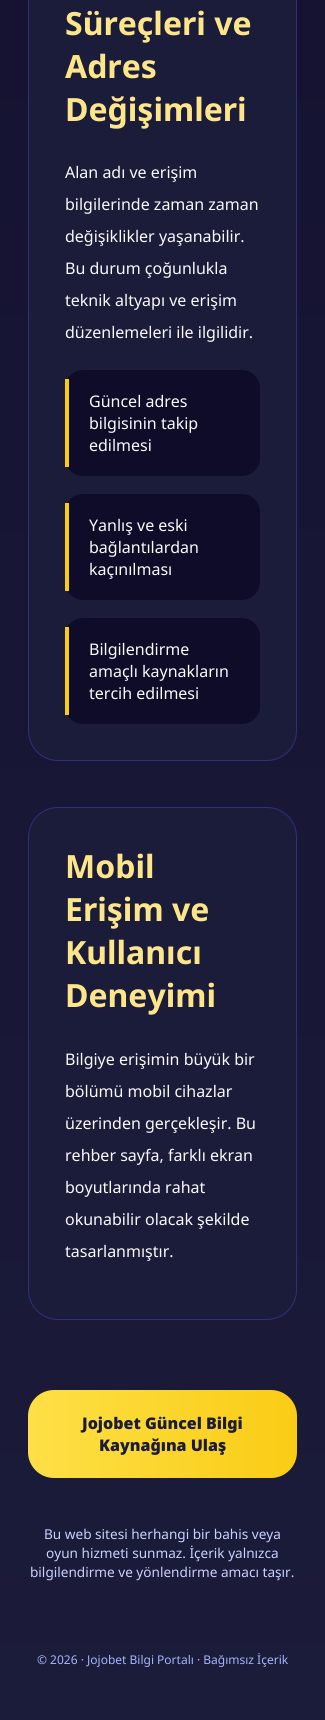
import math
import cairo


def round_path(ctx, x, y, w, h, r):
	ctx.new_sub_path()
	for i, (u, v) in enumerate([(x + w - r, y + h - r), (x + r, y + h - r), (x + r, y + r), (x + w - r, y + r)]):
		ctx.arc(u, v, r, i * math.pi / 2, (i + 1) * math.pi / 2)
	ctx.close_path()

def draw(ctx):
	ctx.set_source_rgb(1, 1, 1)
	ctx.paint()
	gradient = cairo.LinearGradient(162, -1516, 163, 1720)
	gradient.add_color_stop_rgba(0, 0.059, 0.047, 0.161, 1)
	gradient.add_color_stop_rgba(1, 0.106, 0.106, 0.227, 1)
	ctx.set_source(gradient)
	ctx.rectangle(0, 0, 325, 1720)
	ctx.fill()
	ctx.set_source_rgb(0.106, 0.106, 0.227)
	round_path(ctx, 28.5, -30.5, 268, 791, 29.5)
	ctx.fill_preserve()
	ctx.set_source_rgb(0.192, 0.18, 0.506)
	ctx.set_line_width(1)
	ctx.stroke()
	ctx.select_font_face('Noto Sans', cairo.FONT_SLANT_NORMAL, cairo.FONT_WEIGHT_BOLD)
	ctx.set_font_size(32)
	ctx.set_source_rgb(0.992, 0.902, 0.541)
	for x, y, s in [
		(65, 35, 'Süreçleri ve'),
		(65, 78, 'Adres'),
		(65, 121, 'Değişimleri'),
	]:
		ctx.move_to(x, y)
		ctx.show_text(s)
	ctx.select_font_face('Noto Sans')
	ctx.set_font_size(16)
	ctx.set_source_rgb(0.973, 0.98, 0.988)
	for x, y, s in [
		(65, 178, 'Alan adı ve erişim'),
		(65, 210, 'bilgilerinde zaman zaman'),
		(65, 242, 'değişiklikler yaşanabilir.'),
		(65, 274, 'Bu durum çoğunlukla'),
		(65, 306, 'teknik altyapı ve erişim'),
		(65, 338, 'düzenlemeleri ile ilgilidir.'),
	]:
		ctx.move_to(x, y)
		ctx.show_text(s)
	ctx.set_source_rgb(0.059, 0.047, 0.161)
	round_path(ctx, 65, 370, 195, 106, 18)
	ctx.fill()
	ctx.set_source_rgb(0.98, 0.8, 0.082)
	ctx.rectangle(65, 379, 4, 88)
	ctx.fill()
	ctx.set_source_rgb(0.973, 0.98, 0.988)
	for x, y, s in [
		(89, 407, 'Güncel adres'),
		(89, 429, 'bilgisinin takip'),
		(89, 451, 'edilmesi'),
	]:
		ctx.move_to(x, y)
		ctx.show_text(s)
	ctx.set_source_rgb(0.059, 0.047, 0.161)
	round_path(ctx, 65, 494, 195, 106, 18)
	ctx.fill()
	ctx.set_source_rgb(0.98, 0.8, 0.082)
	ctx.rectangle(65, 503, 4, 88)
	ctx.fill()
	ctx.set_source_rgb(0.973, 0.98, 0.988)
	for x, y, s in [
		(89, 531, 'Yanlış ve eski'),
		(89, 553, 'bağlantılardan'),
		(89, 575, 'kaçınılması'),
	]:
		ctx.move_to(x, y)
		ctx.show_text(s)
	ctx.set_source_rgb(0.059, 0.047, 0.161)
	round_path(ctx, 65, 618, 195, 106, 18)
	ctx.fill()
	ctx.set_source_rgb(0.98, 0.8, 0.082)
	ctx.rectangle(65, 627, 4, 88)
	ctx.fill()
	ctx.set_source_rgb(0.973, 0.98, 0.988)
	for x, y, s in [
		(89, 655, 'Bilgilendirme'),
		(89, 677, 'amaçlı kaynakların'),
		(89, 699, 'tercih edilmesi'),
	]:
		ctx.move_to(x, y)
		ctx.show_text(s)
	ctx.set_source_rgb(0.106, 0.106, 0.227)
	round_path(ctx, 28.5, 807.5, 268, 512, 29.5)
	ctx.fill_preserve()
	ctx.set_source_rgb(0.192, 0.18, 0.506)
	ctx.stroke()
	ctx.select_font_face('Noto Sans', cairo.FONT_SLANT_NORMAL, cairo.FONT_WEIGHT_BOLD)
	ctx.set_font_size(32)
	ctx.set_source_rgb(0.992, 0.902, 0.541)
	for x, y, s in [
		(65, 878, 'Mobil'),
		(65, 921, 'Erişim ve'),
		(65, 964, 'Kullanıcı'),
		(65, 1007, 'Deneyimi'),
	]:
		ctx.move_to(x, y)
		ctx.show_text(s)
	ctx.select_font_face('Noto Sans')
	ctx.set_font_size(16)
	ctx.set_source_rgb(0.973, 0.98, 0.988)
	for x, y, s in [
		(65, 1065, 'Bilgiye erişimin büyük bir'),
		(65, 1097, 'bölümü mobil cihazlar'),
		(65, 1129, 'üzerinden gerçekleşir. Bu'),
		(65, 1161, 'rehber sayfa, farklı ekran'),
		(65, 1193, 'boyutlarında rahat'),
		(65, 1225, 'okunabilir olacak şekilde'),
		(65, 1257, 'tasarlanmıştır.'),
	]:
		ctx.move_to(x, y)
		ctx.show_text(s)
	gradient = cairo.LinearGradient(28, 1434, 297, 1434)
	gradient.add_color_stop_rgba(0, 0.992, 0.878, 0.278, 1)
	gradient.add_color_stop_rgba(1, 0.98, 0.8, 0.082, 1)
	ctx.set_source(gradient)
	round_path(ctx, 28, 1390, 269, 88, 26)
	ctx.fill()
	ctx.select_font_face('Noto Sans Black')
	ctx.set_source_rgb(0.106, 0.106, 0.227)
	ctx.move_to(82, 1429)
	ctx.show_text('Jojobet Güncel Bilgi')
	ctx.move_to(99, 1451)
	ctx.show_text('Kaynağına Ulaş')
	ctx.select_font_face('Noto Sans')
	ctx.set_font_size(13.6)
	ctx.set_source_rgb(0.78, 0.824, 0.996)
	for x, y, s in [
		(44, 1539, 'Bu web sitesi herhangi bir bahis veya'),
		(46, 1558, 'oyun hizmeti sunmaz. İçerik yalnızca'),
		(30, 1577, 'bilgilendirme ve yönlendirme amacı taşır.'),
	]:
		ctx.move_to(x, y)
		ctx.show_text(s)
	ctx.set_font_size(12)
	ctx.set_source_rgb(0.647, 0.706, 0.988)
	ctx.move_to(37, 1664)
	ctx.show_text('© 2026 · Jojobet Bilgi Portalı · Bağımsız İçerik')


surface = cairo.ImageSurface(cairo.FORMAT_RGB24, 325, 1720)
ctx = cairo.Context(surface)
options = cairo.FontOptions()
options.set_hint_metrics(cairo.HINT_METRICS_OFF)
options.set_hint_style(cairo.HINT_STYLE_NONE)
ctx.set_font_options(options)
ctx.set_miter_limit(4)
draw(ctx)
surface.write_to_png('image.png')
